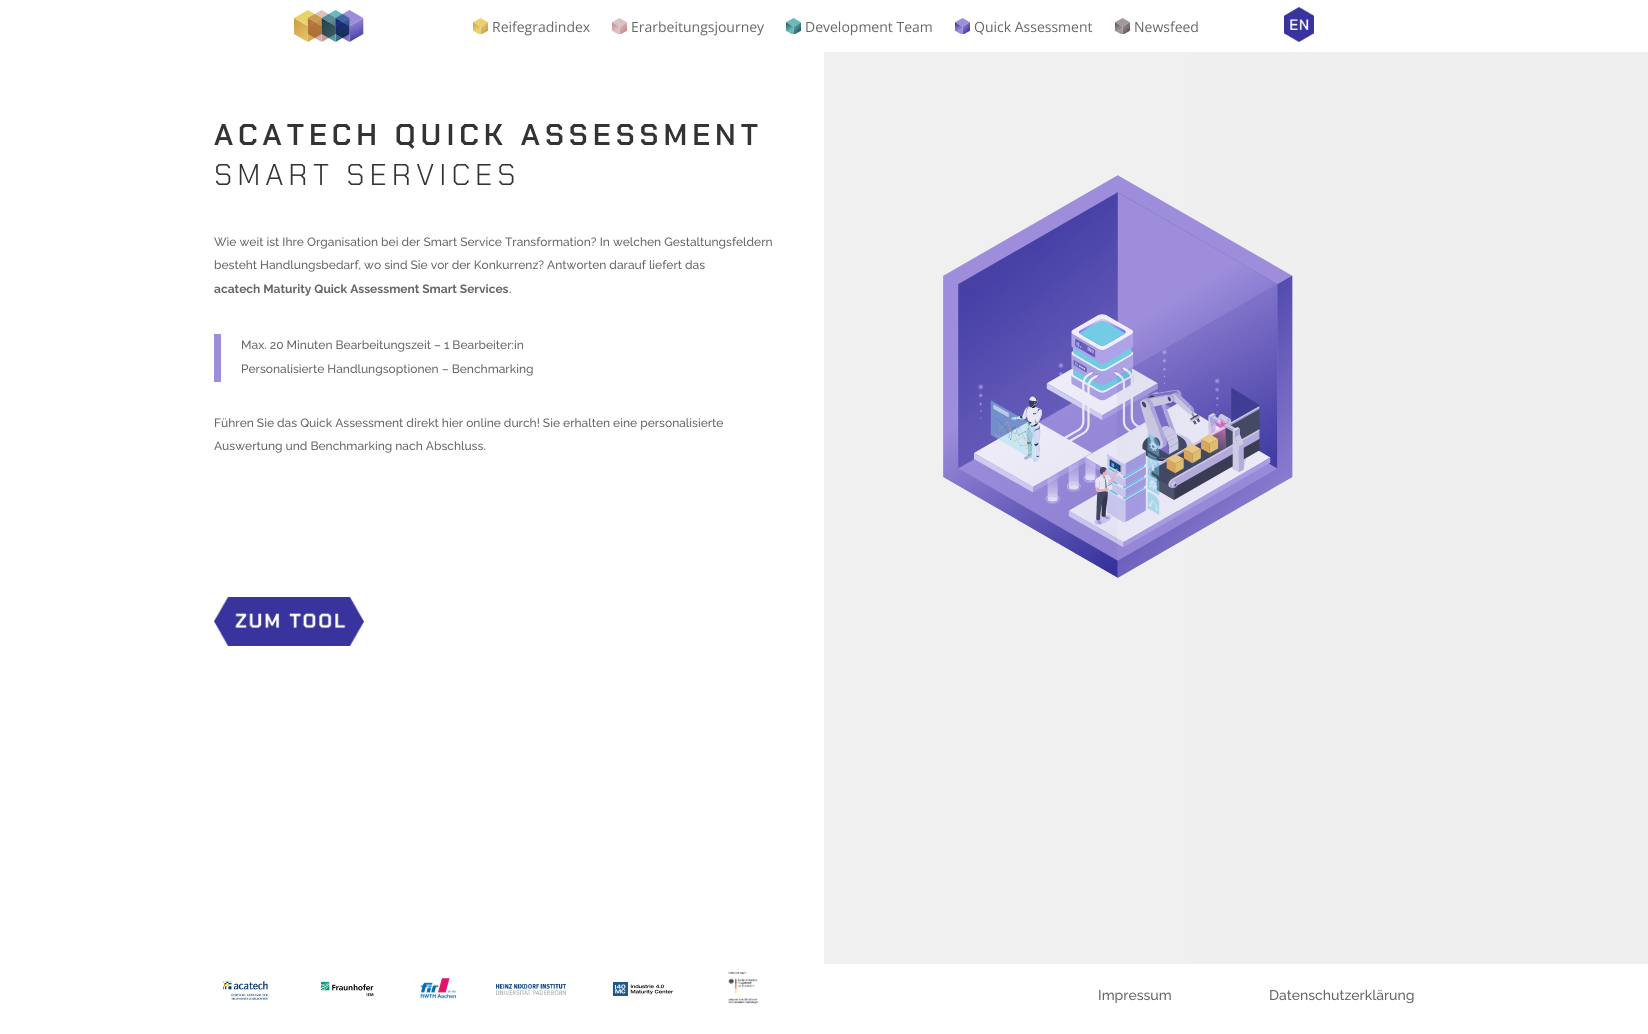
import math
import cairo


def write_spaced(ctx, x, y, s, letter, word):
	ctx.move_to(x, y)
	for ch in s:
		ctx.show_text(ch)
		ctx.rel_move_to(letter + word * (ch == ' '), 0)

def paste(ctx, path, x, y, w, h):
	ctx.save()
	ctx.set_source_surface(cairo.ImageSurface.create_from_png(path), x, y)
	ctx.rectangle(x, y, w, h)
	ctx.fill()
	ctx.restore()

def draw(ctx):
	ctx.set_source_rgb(1, 1, 1)
	ctx.paint()
	paste(ctx, 'media/1.png', 294, 10, 70, 32)
	paste(ctx, 'media/2.png', 473, 18, 15, 16)
	ctx.select_font_face('Open Sans')
	ctx.set_font_size(14)
	ctx.set_source_rgb(0.4, 0.4, 0.4)
	ctx.move_to(492, 32)
	ctx.show_text('Reifegradindex')
	paste(ctx, 'media/3.png', 612, 18, 15, 16)
	ctx.move_to(631, 32)
	ctx.show_text('Erarbeitungsjourney')
	paste(ctx, 'media/4.png', 786, 18, 15, 16)
	ctx.move_to(805, 32)
	ctx.show_text('Development Team')
	paste(ctx, 'media/5.png', 955, 18, 15, 16)
	ctx.move_to(974, 32)
	ctx.show_text('Quick Assessment')
	paste(ctx, 'media/6.png', 1115, 18, 15, 16)
	ctx.move_to(1134, 32)
	ctx.show_text('Newsfeed')
	paste(ctx, 'media/7.png', 1284, 7, 30, 35)
	gradient = cairo.LinearGradient(1648, 483, 0, 483)
	gradient.add_color_stop_rgba(0, 0.937, 0.937, 0.937, 1)
	gradient.add_color_stop_rgba(0.5, 0.941, 0.941, 0.941, 1)
	gradient.add_color_stop_rgba(0.5, 1, 1, 1, 1)
	gradient.add_color_stop_rgba(1, 1, 1, 1, 1)
	ctx.set_source(gradient)
	ctx.rectangle(824, 52, 824, 912)
	ctx.fill()
	ctx.select_font_face('Chakra Petch SemiBold')
	ctx.set_font_size(30)
	ctx.set_source_rgb(0.2, 0.2, 0.2)
	write_spaced(ctx, 214, 145, 'ACATECH QUICK ASSESSMENT', 5, 0)
	ctx.select_font_face('Chakra Petch Light')
	write_spaced(ctx, 214, 185, 'SMART SERVICES', 5, 0)
	ctx.select_font_face('Raleway Thin')
	ctx.set_font_size(12)
	ctx.set_source_rgb(0.4, 0.4, 0.4)
	ctx.move_to(214, 246)
	ctx.show_text('Wie weit ist Ihre Organisation bei der Smart Service Transformation? In welchen Gestaltungsfeldern')
	ctx.move_to(214, 269)
	ctx.show_text('besteht Handlungsbedarf, wo sind Sie vor der Konkurrenz? Antworten darauf liefert das')
	ctx.select_font_face('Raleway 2 Thin')
	ctx.move_to(214, 293)
	ctx.show_text('acatech Maturity Quick Assessment Smart Services')
	ctx.select_font_face('Raleway Thin')
	ctx.move_to(509, 293)
	ctx.show_text('.')
	ctx.set_source_rgb(0.616, 0.553, 0.859)
	ctx.rectangle(214, 334, 7, 48)
	ctx.fill()
	ctx.set_source_rgb(0.4, 0.4, 0.4)
	for x, y, s in [
		(241, 349, 'Max. 20 Minuten Bearbeitungszeit – 1 Bearbeiter:in'),
		(241, 373, 'Personalisierte Handlungsoptionen – Benchmarking'),
		(214, 427, 'Führen Sie das Quick Assessment direkt hier online durch! Sie erhalten eine personalisierte'),
		(214, 450, 'Auswertung und Benchmarking nach Abschluss.'),
	]:
		ctx.move_to(x, y)
		ctx.show_text(s)
	paste(ctx, 'media/8.png', 214, 597, 150, 49)
	paste(ctx, 'media/9.png', 943, 175, 350, 403)
	paste(ctx, 'media/10.png', 223, 981, 45, 19)
	paste(ctx, 'media/11.png', 320, 981, 54, 16)
	paste(ctx, 'media/12.png', 420, 978, 36, 21)
	paste(ctx, 'media/13.png', 496, 984, 70, 11)
	paste(ctx, 'media/14.png', 613, 982, 61, 14)
	paste(ctx, 'media/15.png', 728, 971, 30, 33)
	ctx.set_font_size(14)
	ctx.move_to(1098, 1000)
	ctx.show_text('Impressum')
	ctx.move_to(1269, 1000)
	ctx.show_text('Datenschutzerklärung')


surface = cairo.ImageSurface(cairo.FORMAT_RGB24, 1648, 1034)
ctx = cairo.Context(surface)
options = cairo.FontOptions()
options.set_hint_metrics(cairo.HINT_METRICS_OFF)
options.set_hint_style(cairo.HINT_STYLE_NONE)
ctx.set_font_options(options)
ctx.set_miter_limit(4)
draw(ctx)
surface.write_to_png('image.png')
